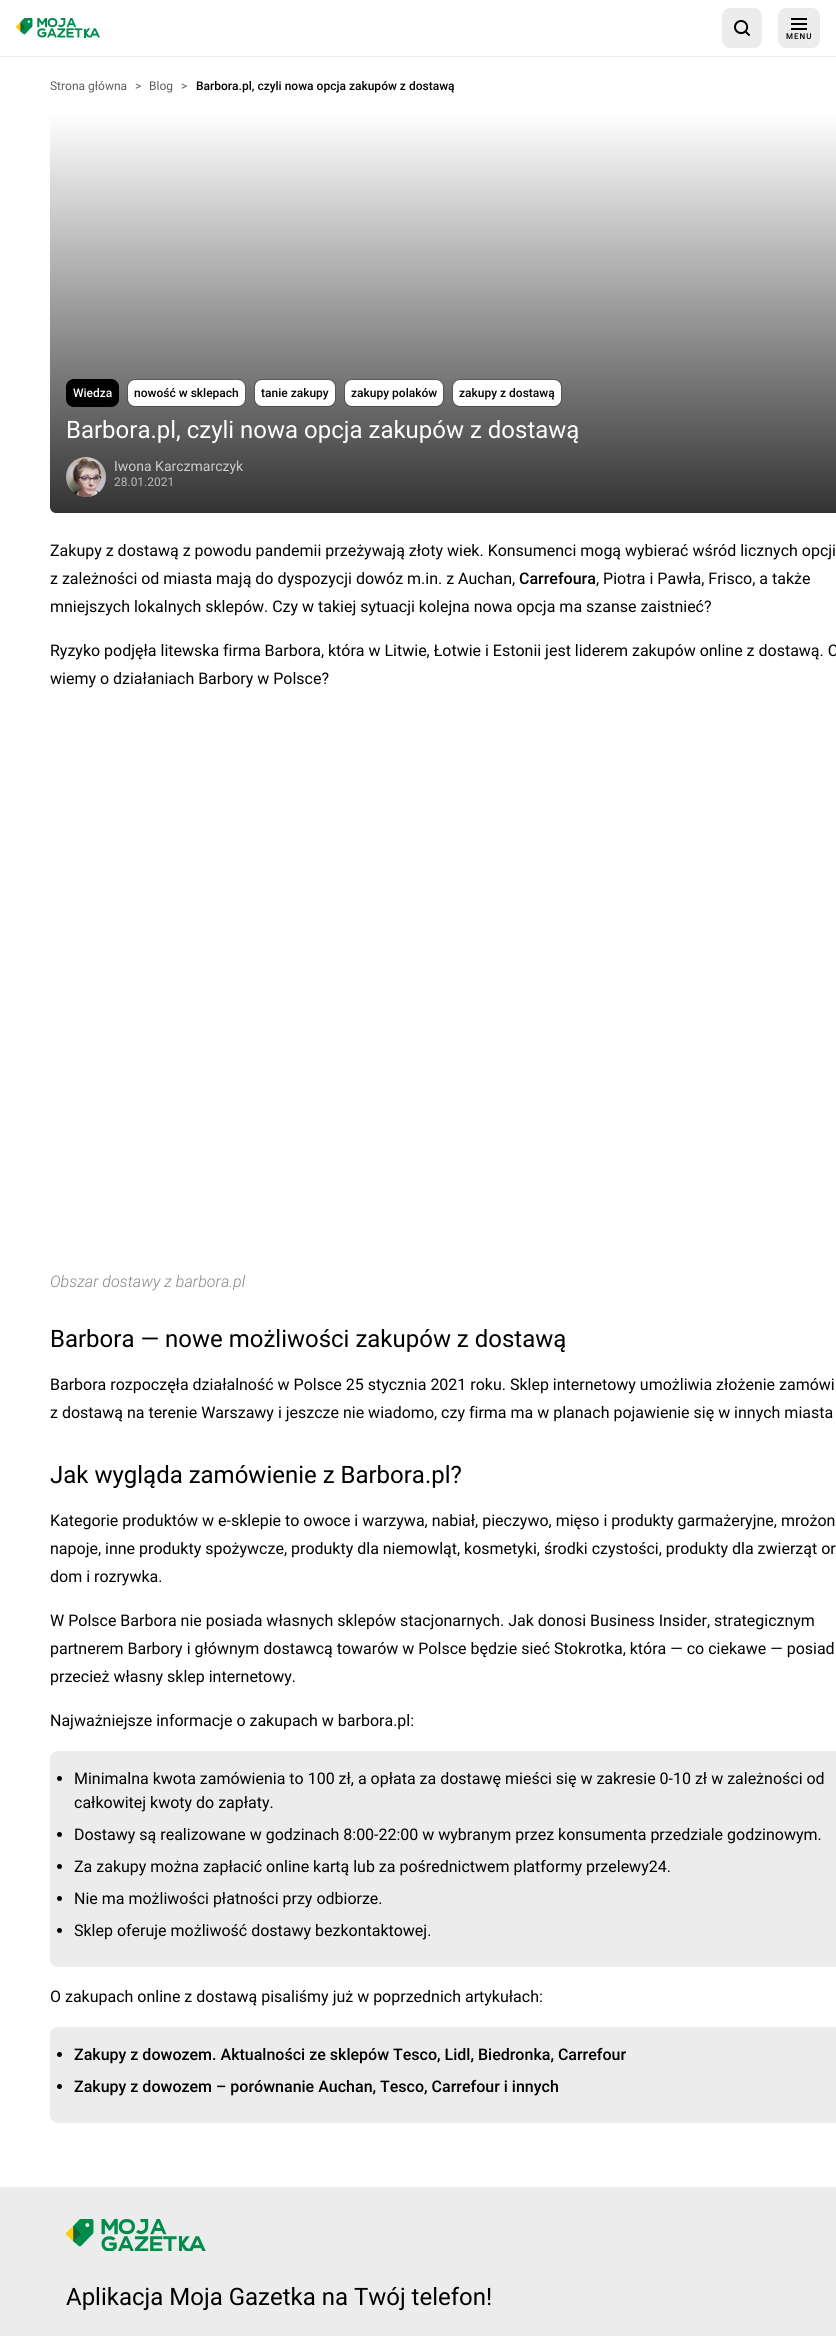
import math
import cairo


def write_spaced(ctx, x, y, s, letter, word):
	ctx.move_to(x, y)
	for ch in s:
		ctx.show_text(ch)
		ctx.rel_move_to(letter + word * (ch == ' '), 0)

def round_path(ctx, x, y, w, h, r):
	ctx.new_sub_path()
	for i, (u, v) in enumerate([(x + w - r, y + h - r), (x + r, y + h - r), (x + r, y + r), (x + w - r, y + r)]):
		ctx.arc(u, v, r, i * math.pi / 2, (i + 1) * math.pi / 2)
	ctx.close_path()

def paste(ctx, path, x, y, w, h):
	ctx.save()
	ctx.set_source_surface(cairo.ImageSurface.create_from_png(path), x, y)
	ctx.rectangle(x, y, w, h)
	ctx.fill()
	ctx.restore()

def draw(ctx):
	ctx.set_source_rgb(1, 1, 1)
	ctx.paint()
	ctx.set_source_rgb(0.922, 0.922, 0.922)
	ctx.rectangle(0, 56, 836, 1)
	ctx.fill()
	paste(ctx, 'media/1.png', 16, 18, 84, 20)
	round_path(ctx, 722, 8, 40, 40, 8)
	ctx.fill()
	paste(ctx, 'media/2.png', 734, 20, 16, 16)
	round_path(ctx, 778, 8, 42, 40, 8)
	ctx.fill()
	paste(ctx, 'media/3.png', 791, 18, 16, 12)
	ctx.select_font_face('Roboto Medium')
	ctx.set_font_size(8)
	ctx.set_source_rgb(0, 0, 0)
	write_spaced(ctx, 786, 39, 'MENU', 1, 0)
	ctx.select_font_face('Roboto')
	ctx.set_font_size(12)
	ctx.set_source_rgb(0.361, 0.361, 0.361)
	for x, y, s in [
		(50, 90, 'Strona główna'),
		(135, 90, '>'),
		(149, 90, 'Blog'),
		(181, 90, '>'),
	]:
		ctx.move_to(x, y)
		ctx.show_text(s)
	ctx.select_font_face('Roboto Medium')
	ctx.set_source_rgb(0, 0, 0)
	ctx.move_to(196, 90)
	ctx.show_text('Barbora.pl, czyli nowa opcja zakupów z dostawą')
	gradient = cairo.LinearGradient(461, 113, 461, 513)
	gradient.add_color_stop_rgba(0, 1, 1, 1, 1)
	gradient.add_color_stop_rgba(1, 0.2, 0.2, 0.2, 1)
	ctx.set_source(gradient)
	round_path(ctx, 50, 113, 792, 400, 6)
	ctx.fill()
	ctx.set_source_rgb(0, 0, 0)
	round_path(ctx, 66.5, 379.5, 52, 27, 7.5)
	ctx.fill_preserve()
	ctx.set_line_width(1)
	ctx.stroke()
	ctx.set_source_rgb(1, 1, 1)
	ctx.move_to(73, 397)
	ctx.show_text('Wiedza')
	round_path(ctx, 128, 380, 117, 26, 7)
	ctx.fill()
	round_path(ctx, 127.5, 379.5, 118, 27, 7.5)
	ctx.set_source_rgba(0, 0, 0, 0.24)
	ctx.stroke()
	ctx.set_source_rgb(0, 0, 0)
	ctx.move_to(134, 397)
	ctx.show_text('nowość w sklepach')
	ctx.set_source_rgb(1, 1, 1)
	round_path(ctx, 255, 380, 80, 26, 7)
	ctx.fill()
	round_path(ctx, 254.5, 379.5, 81, 27, 7.5)
	ctx.set_source_rgba(0, 0, 0, 0.24)
	ctx.stroke()
	ctx.set_source_rgb(0, 0, 0)
	ctx.move_to(261, 397)
	ctx.show_text('tanie zakupy')
	ctx.set_source_rgb(1, 1, 1)
	round_path(ctx, 345, 380, 98, 26, 7)
	ctx.fill()
	round_path(ctx, 344.5, 379.5, 99, 27, 7.5)
	ctx.set_source_rgba(0, 0, 0, 0.24)
	ctx.stroke()
	ctx.set_source_rgb(0, 0, 0)
	ctx.move_to(351, 397)
	ctx.show_text('zakupy polaków')
	ctx.set_source_rgb(1, 1, 1)
	round_path(ctx, 453, 380, 108, 26, 7)
	ctx.fill()
	round_path(ctx, 452.5, 379.5, 109, 27, 7.5)
	ctx.set_source_rgba(0, 0, 0, 0.24)
	ctx.stroke()
	ctx.set_source_rgb(0, 0, 0)
	ctx.move_to(459, 397)
	ctx.show_text('zakupy z dostawą')
	ctx.select_font_face('Roboto')
	ctx.set_font_size(24)
	ctx.set_source_rgb(1, 1, 1)
	ctx.move_to(66, 438)
	ctx.show_text('Barbora.pl, czyli nowa opcja zakupów z dostawą')
	paste(ctx, 'media/4.png', 66, 457, 40, 40)
	ctx.set_font_size(14)
	ctx.set_source_rgb(0.8, 0.8, 0.8)
	ctx.move_to(114, 471)
	ctx.show_text('Iwona Karczmarczyk')
	ctx.set_font_size(12)
	ctx.set_source_rgb(0.733, 0.733, 0.733)
	ctx.move_to(114, 486)
	ctx.show_text('28.01.2021')
	ctx.set_font_size(16)
	ctx.set_source_rgb(0, 0, 0)
	ctx.move_to(50, 556)
	ctx.show_text('Zakupy z dostawą z powodu pandemii przeżywają złoty wiek. Konsumenci mogą wybierać wśród licznych opcji')
	ctx.move_to(50, 584)
	ctx.show_text('z zależności od miasta mają do dyspozycji dowóz m.in. z Auchan,')
	ctx.select_font_face('Roboto Medium')
	ctx.move_to(519, 584)
	ctx.show_text('Carrefoura')
	ctx.select_font_face('Roboto')
	for x, y, s in [
		(596, 584, ', Piotra i Pawła, Frisco, a także'),
		(50, 612, 'mniejszych lokalnych sklepów. Czy w takiej sytuacji kolejna nowa opcja ma szanse zaistnieć?'),
		(50, 656, 'Ryzyko podjęła litewska firma Barbora, która w Litwie, Łotwie i Estonii jest liderem zakupów online z dostawą. C'),
		(50, 684, 'wiemy o działaniach Barbory w Polsce?'),
	]:
		ctx.move_to(x, y)
		ctx.show_text(s)
	ctx.select_font_face('Roboto Light', cairo.FONT_SLANT_ITALIC)
	ctx.set_source_rgb(0.522, 0.522, 0.522)
	ctx.move_to(50, 1287)
	ctx.show_text('Obszar dostawy z barbora.pl')
	ctx.select_font_face('Roboto')
	ctx.set_font_size(24)
	ctx.set_source_rgb(0, 0, 0)
	ctx.move_to(50, 1347)
	ctx.show_text('Barbora — nowe możliwości zakupów z dostawą')
	ctx.set_font_size(16)
	ctx.move_to(50, 1390)
	ctx.show_text('Barbora rozpoczęła działalność w Polsce 25 stycznia 2021 roku. Sklep internetowy umożliwia złożenie zamówi')
	ctx.move_to(50, 1418)
	ctx.show_text('z dostawą na terenie Warszawy i jeszcze nie wiadomo, czy firma ma w planach pojawienie się w innych miasta')
	ctx.set_font_size(24)
	ctx.move_to(50, 1483)
	ctx.show_text('Jak wygląda zamówienie z Barbora.pl?')
	ctx.set_font_size(16)
	for x, y, s in [
		(50, 1526, 'Kategorie produktów w e-sklepie to owoce i warzywa, nabiał, pieczywo, mięso i produkty garmażeryjne, mrożon'),
		(50, 1554, 'napoje, inne produkty spożywcze, produkty dla niemowląt, kosmetyki, środki czystości, produkty dla zwierząt or'),
		(50, 1582, 'dom i rozrywka.'),
		(50, 1626, 'W Polsce Barbora nie posiada własnych sklepów stacjonarnych. Jak donosi Business Insider, strategicznym'),
		(50, 1654, 'partnerem Barbory i głównym dostawcą towarów w Polsce będzie sieć Stokrotka, która — co ciekawe — posiad'),
		(50, 1682, 'przecież własny sklep internetowy.'),
		(50, 1726, 'Najważniejsze informacje o zakupach w barbora.pl:'),
	]:
		ctx.move_to(x, y)
		ctx.show_text(s)
	ctx.set_source_rgb(0.922, 0.922, 0.922)
	round_path(ctx, 50, 1751, 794, 216, 8)
	ctx.fill()
	ctx.set_source_rgb(0, 0, 0)
	ctx.arc(59.5, 1778.5, 2.5, 0, 2 * math.pi)
	ctx.fill()
	ctx.move_to(74, 1784)
	ctx.show_text('Minimalna kwota zamówienia to 100 zł, a opłata za dostawę mieści się w zakresie 0-10 zł w zależności od')
	ctx.move_to(74, 1808)
	ctx.show_text('całkowitej kwoty do zapłaty.')
	ctx.new_path()
	ctx.arc(59.5, 1834.5, 2.5, 0, 2 * math.pi)
	ctx.fill()
	ctx.move_to(74, 1840)
	ctx.show_text('Dostawy są realizowane w godzinach 8:00-22:00 w wybranym przez konsumenta przedziale godzinowym.')
	ctx.new_path()
	ctx.arc(59.5, 1866.5, 2.5, 0, 2 * math.pi)
	ctx.fill()
	ctx.move_to(74, 1872)
	ctx.show_text('Za zakupy można zapłacić online kartą lub za pośrednictwem platformy przelewy24.')
	ctx.new_path()
	ctx.arc(59.5, 1898.5, 2.5, 0, 2 * math.pi)
	ctx.fill()
	ctx.move_to(74, 1904)
	ctx.show_text('Nie ma możliwości płatności przy odbiorze.')
	ctx.new_path()
	ctx.arc(59.5, 1930.5, 2.5, 0, 2 * math.pi)
	ctx.fill()
	ctx.move_to(74, 1936)
	ctx.show_text('Sklep oferuje możliwość dostawy bezkontaktowej.')
	ctx.move_to(50, 2002)
	ctx.show_text('O zakupach online z dostawą pisaliśmy już w poprzednich artykułach:')
	ctx.set_source_rgb(0.922, 0.922, 0.922)
	round_path(ctx, 50, 2027, 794, 96, 8)
	ctx.fill()
	ctx.set_source_rgb(0, 0, 0)
	ctx.arc(59.5, 2054.5, 2.5, 0, 2 * math.pi)
	ctx.fill()
	ctx.select_font_face('Roboto Medium')
	ctx.move_to(74, 2060)
	ctx.show_text('Zakupy z dowozem. Aktualności ze sklepów Tesco, Lidl, Biedronka, Carrefour')
	ctx.new_path()
	ctx.arc(59.5, 2086.5, 2.5, 0, 2 * math.pi)
	ctx.fill()
	ctx.move_to(74, 2092)
	ctx.show_text('Zakupy z dowozem – porównanie Auchan, Tesco, Carrefour i innych')
	ctx.set_source_rgb(0.922, 0.922, 0.922)
	ctx.rectangle(0, 2187, 836, 149)
	ctx.fill()
	paste(ctx, 'media/5.png', 66, 2219, 140, 32)
	ctx.select_font_face('Roboto')
	ctx.set_font_size(24)
	ctx.set_source_rgb(0, 0, 0)
	ctx.move_to(66, 2305)
	ctx.show_text('Aplikacja Moja Gazetka na Twój telefon!')


surface = cairo.ImageSurface(cairo.FORMAT_RGB24, 836, 2336)
ctx = cairo.Context(surface)
options = cairo.FontOptions()
options.set_hint_metrics(cairo.HINT_METRICS_OFF)
options.set_hint_style(cairo.HINT_STYLE_NONE)
ctx.set_font_options(options)
ctx.set_miter_limit(4)
draw(ctx)
surface.write_to_png('image.png')
